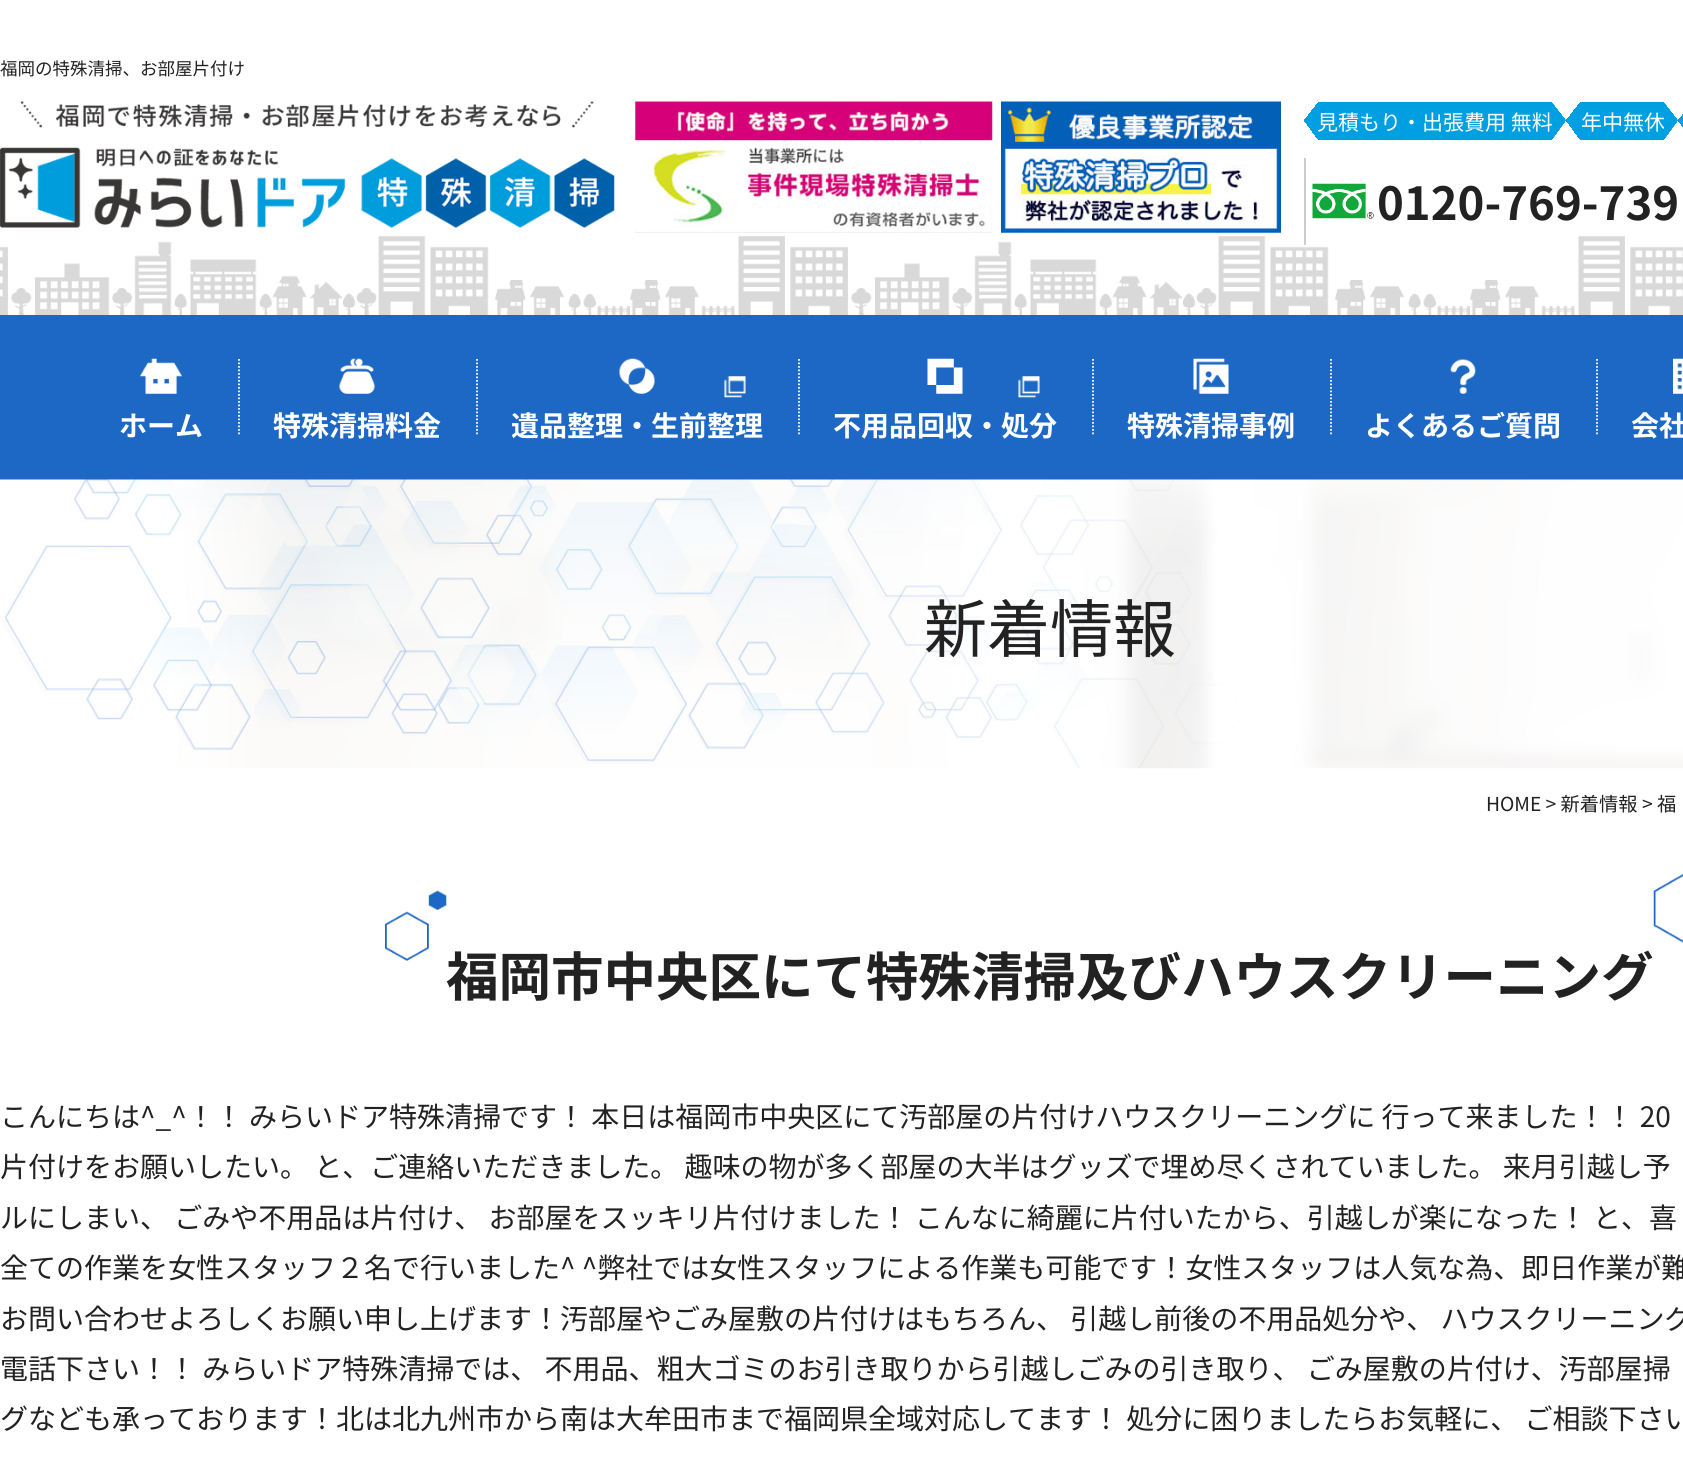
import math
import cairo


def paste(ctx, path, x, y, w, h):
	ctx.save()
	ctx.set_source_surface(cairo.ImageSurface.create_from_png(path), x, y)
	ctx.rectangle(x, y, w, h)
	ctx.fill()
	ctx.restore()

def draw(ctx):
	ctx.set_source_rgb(1, 1, 1)
	ctx.paint()
	ctx.select_font_face('Noto Sans JP')
	ctx.set_font_size(17.5)
	ctx.set_source_rgb(0.133, 0.133, 0.133)
	ctx.move_to(0, 75)
	ctx.show_text('福岡の特殊清掃、お部屋片付け')
	paste(ctx, 'media/1.png', 0, 236, 1683, 79)
	paste(ctx, 'media/2.png', 0, 101, 615, 127)
	paste(ctx, 'media/3.png', 635, 101, 358, 132)
	paste(ctx, 'media/4.png', 1001, 101, 280, 132)
	ctx.set_source_rgb(0, 0.624, 0.882)
	ctx.rectangle(1318, 102, 234, 38)
	ctx.fill()
	ctx.set_font_size(21)
	ctx.set_source_rgb(1, 1, 1)
	ctx.move_to(1317, 130)
	ctx.show_text('見積もり・出張費用 無料')
	gradient = cairo.LinearGradient(1302, 104, 1320, 118)
	gradient.add_color_stop_rgba(0.5, 1, 1, 1, 1)
	gradient.add_color_stop_rgba(0.5, 0, 0.624, 0.882, 1)
	ctx.set_source(gradient)
	ctx.rectangle(1304, 103, 14, 18)
	ctx.fill()
	gradient = cairo.LinearGradient(1302, 137, 1320, 124)
	gradient.add_color_stop_rgba(0.5, 1, 1, 1, 1)
	gradient.add_color_stop_rgba(0.5, 0, 0.624, 0.882, 1)
	ctx.set_source(gradient)
	ctx.rectangle(1304, 121, 14, 18)
	ctx.fill()
	gradient = cairo.LinearGradient(1568, 104, 1550, 118)
	gradient.add_color_stop_rgba(0.5, 1, 1, 1, 1)
	gradient.add_color_stop_rgba(0.51, 0, 0.624, 0.882, 1)
	ctx.set_source(gradient)
	ctx.rectangle(1552, 103, 14, 18)
	ctx.fill()
	gradient = cairo.LinearGradient(1568, 137, 1550, 124)
	gradient.add_color_stop_rgba(0.5, 1, 1, 1, 1)
	gradient.add_color_stop_rgba(0.51, 0, 0.624, 0.882, 1)
	ctx.set_source(gradient)
	ctx.rectangle(1552, 121, 13, 18)
	ctx.fill()
	ctx.set_source_rgb(0, 0.624, 0.882)
	ctx.rectangle(1580, 102, 84, 38)
	ctx.fill()
	gradient = cairo.LinearGradient(1564, 104, 1582, 118)
	gradient.add_color_stop_rgba(0.5, 1, 1, 1, 1)
	gradient.add_color_stop_rgba(0.5, 0, 0.624, 0.882, 1)
	ctx.set_source(gradient)
	ctx.rectangle(1566, 103, 14, 18)
	ctx.fill()
	gradient = cairo.LinearGradient(1564, 137, 1582, 124)
	gradient.add_color_stop_rgba(0.5, 1, 1, 1, 1)
	gradient.add_color_stop_rgba(0.5, 0, 0.624, 0.882, 1)
	ctx.set_source(gradient)
	ctx.rectangle(1566, 121, 14, 18)
	ctx.fill()
	ctx.set_source_rgb(1, 1, 1)
	ctx.move_to(1581, 130)
	ctx.show_text('年中無休')
	gradient = cairo.LinearGradient(1680, 104, 1662, 118)
	gradient.add_color_stop_rgba(0.5, 1, 1, 1, 1)
	gradient.add_color_stop_rgba(0.51, 0, 0.624, 0.882, 1)
	ctx.set_source(gradient)
	ctx.rectangle(1664, 103, 14, 18)
	ctx.fill()
	gradient = cairo.LinearGradient(1680, 137, 1662, 124)
	gradient.add_color_stop_rgba(0.5, 1, 1, 1, 1)
	gradient.add_color_stop_rgba(0.51, 0, 0.624, 0.882, 1)
	ctx.set_source(gradient)
	ctx.rectangle(1664, 121, 13, 18)
	ctx.fill()
	gradient = cairo.LinearGradient(1676, 104, 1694, 118)
	gradient.add_color_stop_rgba(0.5, 1, 1, 1, 1)
	gradient.add_color_stop_rgba(0.5, 0, 0.624, 0.882, 1)
	ctx.set_source(gradient)
	ctx.rectangle(1678, 114, 5, 7)
	ctx.fill()
	gradient = cairo.LinearGradient(1676, 137, 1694, 124)
	gradient.add_color_stop_rgba(0.5, 1, 1, 1, 1)
	gradient.add_color_stop_rgba(0.5, 0, 0.624, 0.882, 1)
	ctx.set_source(gradient)
	ctx.rectangle(1678, 121, 5, 6)
	ctx.fill()
	ctx.set_source_rgb(0.8, 0.8, 0.8)
	ctx.rectangle(1304, 158, 2, 87)
	ctx.fill()
	paste(ctx, 'media/5.png', 1312, 183, 62, 36)
	ctx.select_font_face('Noto Sans JP', cairo.FONT_SLANT_NORMAL, cairo.FONT_WEIGHT_BOLD)
	ctx.set_font_size(45.5)
	ctx.set_source_rgb(0.133, 0.133, 0.133)
	ctx.move_to(1377, 220)
	ctx.show_text('0120-769-739')
	ctx.set_source_rgb(0.114, 0.408, 0.773)
	ctx.rectangle(0, 315, 1683, 165)
	ctx.fill()
	paste(ctx, 'media/6.png', 140, 358, 42, 36)
	ctx.set_font_size(28)
	ctx.set_source_rgb(1, 1, 1)
	ctx.move_to(119, 436)
	ctx.show_text('ホーム')
	ctx.new_path()
	ctx.move_to(239, 359)
	ctx.line_to(239, 436)
	ctx.set_line_width(1.8)
	ctx.set_dash([1.75, 1.75])
	ctx.stroke()
	paste(ctx, 'media/7.png', 339, 358, 36, 36)
	ctx.move_to(273, 436)
	ctx.show_text('特殊清掃料金')
	ctx.new_path()
	ctx.move_to(477, 359)
	ctx.line_to(477, 436)
	ctx.stroke()
	paste(ctx, 'media/8.png', 619, 358, 36, 36)
	paste(ctx, 'media/9.png', 724, 376, 22, 22)
	ctx.move_to(511, 436)
	ctx.show_text('遺品整理・生前整理')
	ctx.new_path()
	ctx.move_to(799, 359)
	ctx.line_to(799, 436)
	ctx.stroke()
	paste(ctx, 'media/10.png', 927, 358, 36, 36)
	paste(ctx, 'media/9.png', 1018, 376, 22, 22)
	ctx.move_to(833, 436)
	ctx.show_text('不用品回収・処分')
	ctx.new_path()
	ctx.move_to(1093, 359)
	ctx.line_to(1093, 436)
	ctx.stroke()
	paste(ctx, 'media/11.png', 1193, 358, 36, 36)
	ctx.move_to(1127, 436)
	ctx.show_text('特殊清掃事例')
	ctx.new_path()
	ctx.move_to(1331, 359)
	ctx.line_to(1331, 436)
	ctx.stroke()
	paste(ctx, 'media/12.png', 1450, 359, 26, 35)
	ctx.move_to(1365, 436)
	ctx.show_text('よくあるご質問')
	ctx.new_path()
	ctx.move_to(1597, 359)
	ctx.line_to(1597, 436)
	ctx.stroke()
	paste(ctx, 'media/13.png', 1673, 358, 10, 36)
	ctx.move_to(1631, 436)
	ctx.show_text('会社')
	paste(ctx, 'media/14.png', 0, 479, 1683, 290)
	ctx.select_font_face('Noto Sans JP')
	ctx.set_font_size(63)
	ctx.set_source_rgb(0.133, 0.133, 0.133)
	ctx.move_to(924, 652)
	ctx.show_text('新着情報')
	ctx.set_font_size(19.25)
	ctx.move_to(1486, 811)
	ctx.show_text('HOME > 新着情報 > 福')
	paste(ctx, 'media/15.png', 385, 890, 62, 71)
	paste(ctx, 'media/16.png', 1653, 873, 30, 70)
	ctx.select_font_face('Noto Sans JP', cairo.FONT_SLANT_NORMAL, cairo.FONT_WEIGHT_BOLD)
	ctx.set_font_size(52.5)
	ctx.move_to(446, 996)
	ctx.show_text('福岡市中央区にて特殊清掃及びハウスクリーニング')
	ctx.select_font_face('Noto Sans JP')
	ctx.set_font_size(28)
	for x, y, s in [
		(0, 1127, 'こんにちは^_^！！ みらいドア特殊清掃です！ 本日は福岡市中央区にて汚部屋の片付けハウスクリーニングに 行って来ました！！ 20'),
		(0, 1177, '片付けをお願いしたい。 と、ご連絡いただきました。 趣味の物が多く部屋の大半はグッズで埋め尽くされていました。 来月引越し予'),
		(0, 1228, 'ルにしまい、 ごみや不用品は片付け、 お部屋をスッキリ片付けました！ こんなに綺麗に片付いたから、引越しが楽になった！ と、喜'),
		(0, 1278, '全ての作業を女性スタッフ２名で行いました^ ^弊社では女性スタッフによる作業も可能です！女性スタッフは人気な為、即日作業が難'),
		(0, 1329, 'お問い合わせよろしくお願い申し上げます！汚部屋やごみ屋敷の片付けはもちろん、 引越し前後の不用品処分や、 ハウスクリーニング'),
		(0, 1379, '電話下さい！！ みらいドア特殊清掃では、 不用品、粗大ゴミのお引き取りから引越しごみの引き取り、 ごみ屋敷の片付け、汚部屋掃'),
		(0, 1429, 'グなども承っております！北は北九州市から南は大牟田市まで福岡県全域対応してます！ 処分に困りましたらお気軽に、 ご相談下さい'),
	]:
		ctx.move_to(x, y)
		ctx.show_text(s)


surface = cairo.ImageSurface(cairo.FORMAT_RGB24, 1683, 1477)
ctx = cairo.Context(surface)
options = cairo.FontOptions()
options.set_hint_metrics(cairo.HINT_METRICS_OFF)
options.set_hint_style(cairo.HINT_STYLE_NONE)
ctx.set_font_options(options)
ctx.set_miter_limit(4)
draw(ctx)
surface.write_to_png('image.png')
